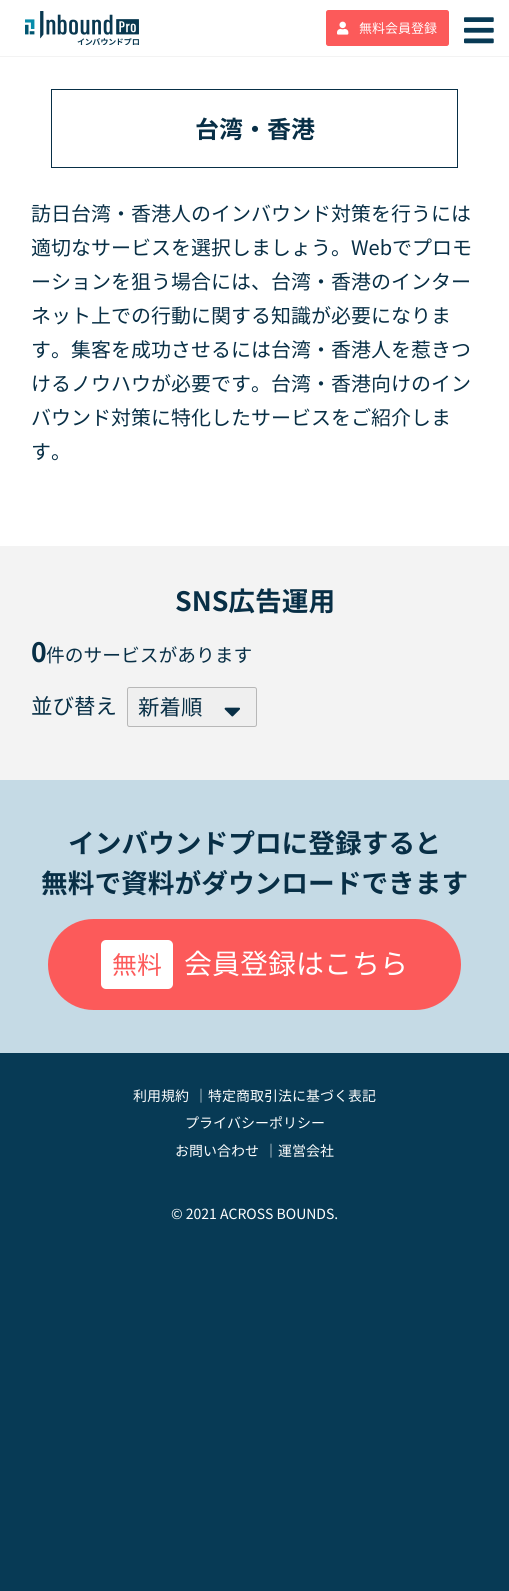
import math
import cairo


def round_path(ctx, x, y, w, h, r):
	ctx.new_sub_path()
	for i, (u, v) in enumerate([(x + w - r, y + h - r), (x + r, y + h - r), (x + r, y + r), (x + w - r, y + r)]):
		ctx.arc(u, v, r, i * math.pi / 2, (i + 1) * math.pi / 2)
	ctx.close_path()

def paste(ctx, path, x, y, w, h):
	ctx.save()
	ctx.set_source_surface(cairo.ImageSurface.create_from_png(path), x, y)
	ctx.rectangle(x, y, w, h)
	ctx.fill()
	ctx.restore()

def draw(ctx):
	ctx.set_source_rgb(0.031, 0.227, 0.333)
	ctx.paint()
	ctx.set_source_rgb(1, 1, 1)
	ctx.rectangle(0, 0, 509, 56)
	ctx.fill()
	ctx.set_source_rgb(0.953, 0.953, 0.953)
	ctx.rectangle(0, 56, 509, 1)
	ctx.fill()
	paste(ctx, 'media/1.png', 25, 11, 114, 34)
	ctx.set_source_rgb(0.988, 0.353, 0.353)
	round_path(ctx, 326.5, 10.5, 122, 35, 2)
	ctx.fill_preserve()
	ctx.set_line_width(1)
	ctx.stroke()
	paste(ctx, 'media/2.png', 337, 21, 12, 14)
	ctx.select_font_face('Noto Sans CJK JP')
	ctx.set_font_size(13)
	ctx.set_source_rgb(1, 1, 1)
	ctx.move_to(359, 33)
	ctx.show_text('無料会員登録')
	paste(ctx, 'media/3.png', 464, 17, 30, 27)
	ctx.rectangle(0, 57, 509, 489)
	ctx.fill()
	ctx.rectangle(51.5, 89.5, 406, 78)
	ctx.set_source_rgb(0.035, 0.184, 0.275)
	ctx.stroke()
	ctx.select_font_face('Noto Sans CJK JP', cairo.FONT_SLANT_NORMAL, cairo.FONT_WEIGHT_BOLD)
	ctx.set_font_size(24)
	ctx.move_to(195, 138)
	ctx.show_text('台湾・香港')
	ctx.select_font_face('Noto Sans CJK JP')
	ctx.set_font_size(20)
	for x, y, s in [
		(31, 221, '訪日台湾・香港人のインバウンド対策を行うには'),
		(31, 255, '適切なサービスを選択しましょう。Webでプロモ'),
		(31, 289, 'ーションを狙う場合には、台湾・香港のインター'),
		(31, 323, 'ネット上での行動に関する知識が必要になりま'),
		(31, 357, 'す。集客を成功させるには台湾・香港人を惹きつ'),
		(31, 391, 'けるノウハウが必要です。台湾・香港向けのイン'),
		(31, 425, 'バウンド対策に特化したサービスをご紹介しま'),
		(31, 459, 'す。'),
	]:
		ctx.move_to(x, y)
		ctx.show_text(s)
	ctx.set_source_rgb(0.953, 0.953, 0.953)
	ctx.rectangle(0, 546, 509, 234)
	ctx.fill()
	ctx.select_font_face('Noto Sans CJK JP', cairo.FONT_SLANT_NORMAL, cairo.FONT_WEIGHT_BOLD)
	ctx.set_font_size(26.7)
	ctx.set_source_rgb(0.035, 0.184, 0.275)
	ctx.move_to(175, 611)
	ctx.show_text('SNS広告運用')
	ctx.move_to(31, 662)
	ctx.show_text('0')
	ctx.select_font_face('Noto Sans CJK JP')
	ctx.set_font_size(18.75)
	ctx.move_to(46, 662)
	ctx.show_text('件のサービスがあります')
	ctx.set_font_size(21.5)
	ctx.move_to(31, 714)
	ctx.show_text('並び替え')
	ctx.set_source_rgb(0.937, 0.937, 0.937)
	round_path(ctx, 127.5, 687.5, 129, 39, 2)
	ctx.fill_preserve()
	ctx.set_source_rgb(0.718, 0.718, 0.718)
	ctx.stroke()
	ctx.set_source_rgb(0.035, 0.184, 0.275)
	ctx.move_to(138, 715)
	ctx.show_text('新着順')
	paste(ctx, 'media/4.png', 224, 707, 16, 10)
	ctx.set_source_rgb(0.773, 0.855, 0.898)
	ctx.rectangle(0, 780, 509, 273)
	ctx.fill()
	ctx.select_font_face('Noto Sans CJK JP', cairo.FONT_SLANT_NORMAL, cairo.FONT_WEIGHT_BOLD)
	ctx.set_font_size(26.7)
	ctx.set_source_rgb(0.035, 0.184, 0.275)
	ctx.move_to(68, 853)
	ctx.show_text('インバウンドプロに登録すると')
	ctx.move_to(41, 893)
	ctx.show_text('無料で資料がダウンロードできます')
	ctx.set_source_rgb(0.988, 0.353, 0.353)
	round_path(ctx, 48, 919, 413, 91, 45.5)
	ctx.fill()
	ctx.set_source_rgb(1, 1, 1)
	round_path(ctx, 101, 940, 72, 49, 5)
	ctx.fill()
	ctx.select_font_face('Noto Sans CJK JP')
	ctx.set_font_size(25)
	ctx.set_source_rgb(0.988, 0.353, 0.353)
	ctx.move_to(112, 974)
	ctx.show_text('無料')
	ctx.set_font_size(28)
	ctx.set_source_rgb(1, 1, 1)
	ctx.move_to(184, 974)
	ctx.show_text('会員登録はこちら')
	ctx.set_font_size(14)
	for x, y, s in [
		(133, 1101, '利用規約'),
		(194, 1101, '｜特定商取引法に基づく表記'),
		(185, 1128, 'プライバシーポリシー'),
		(175, 1156, 'お問い合わせ'),
		(264, 1156, '｜運営会社'),
		(171, 1219, '© 2021 ACROSS BOUNDS.'),
	]:
		ctx.move_to(x, y)
		ctx.show_text(s)


surface = cairo.ImageSurface(cairo.FORMAT_RGB24, 509, 1591)
ctx = cairo.Context(surface)
options = cairo.FontOptions()
options.set_hint_metrics(cairo.HINT_METRICS_OFF)
options.set_hint_style(cairo.HINT_STYLE_NONE)
ctx.set_font_options(options)
ctx.set_miter_limit(4)
draw(ctx)
surface.write_to_png('image.png')
